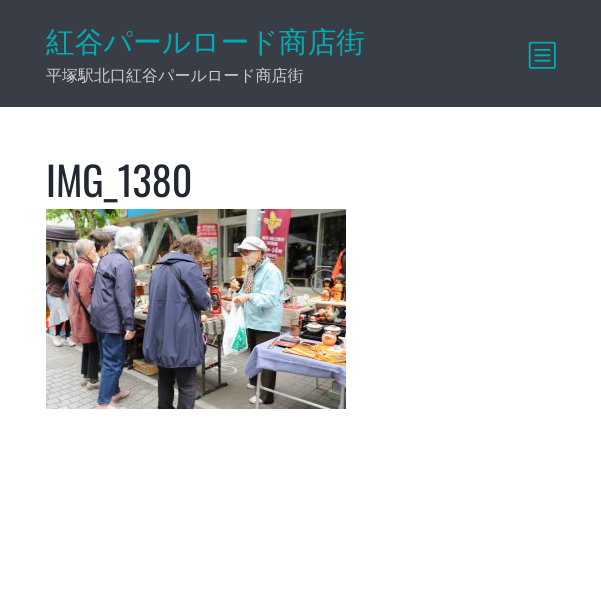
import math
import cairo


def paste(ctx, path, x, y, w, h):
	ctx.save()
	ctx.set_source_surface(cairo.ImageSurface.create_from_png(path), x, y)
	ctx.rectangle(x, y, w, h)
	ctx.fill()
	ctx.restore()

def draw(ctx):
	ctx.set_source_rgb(1, 1, 1)
	ctx.paint()
	ctx.set_source_rgb(0.224, 0.243, 0.275)
	ctx.rectangle(0, 0, 601, 107)
	ctx.fill()
	ctx.select_font_face('WenQuanYi Zen Hei Medium')
	ctx.set_font_size(28.75)
	ctx.set_source_rgb(0, 0.678, 0.71)
	ctx.move_to(46, 52)
	ctx.show_text('紅谷パールロード商店街')
	paste(ctx, 'media/1.png', 528, 41, 28, 28)
	ctx.set_font_size(16)
	ctx.set_source_rgb(0.8, 0.8, 0.8)
	ctx.move_to(46, 81)
	ctx.show_text('平塚駅北口紅谷パールロード商店街')
	ctx.select_font_face('Oswald')
	ctx.set_font_size(40)
	ctx.set_source_rgb(0.133, 0.157, 0.192)
	ctx.move_to(46, 197)
	ctx.show_text('IMG_1380')
	paste(ctx, 'media/2.png', 46, 209, 300, 200)


surface = cairo.ImageSurface(cairo.FORMAT_RGB24, 601, 597)
ctx = cairo.Context(surface)
options = cairo.FontOptions()
options.set_hint_metrics(cairo.HINT_METRICS_OFF)
options.set_hint_style(cairo.HINT_STYLE_NONE)
ctx.set_font_options(options)
ctx.set_miter_limit(4)
draw(ctx)
surface.write_to_png('image.png')
